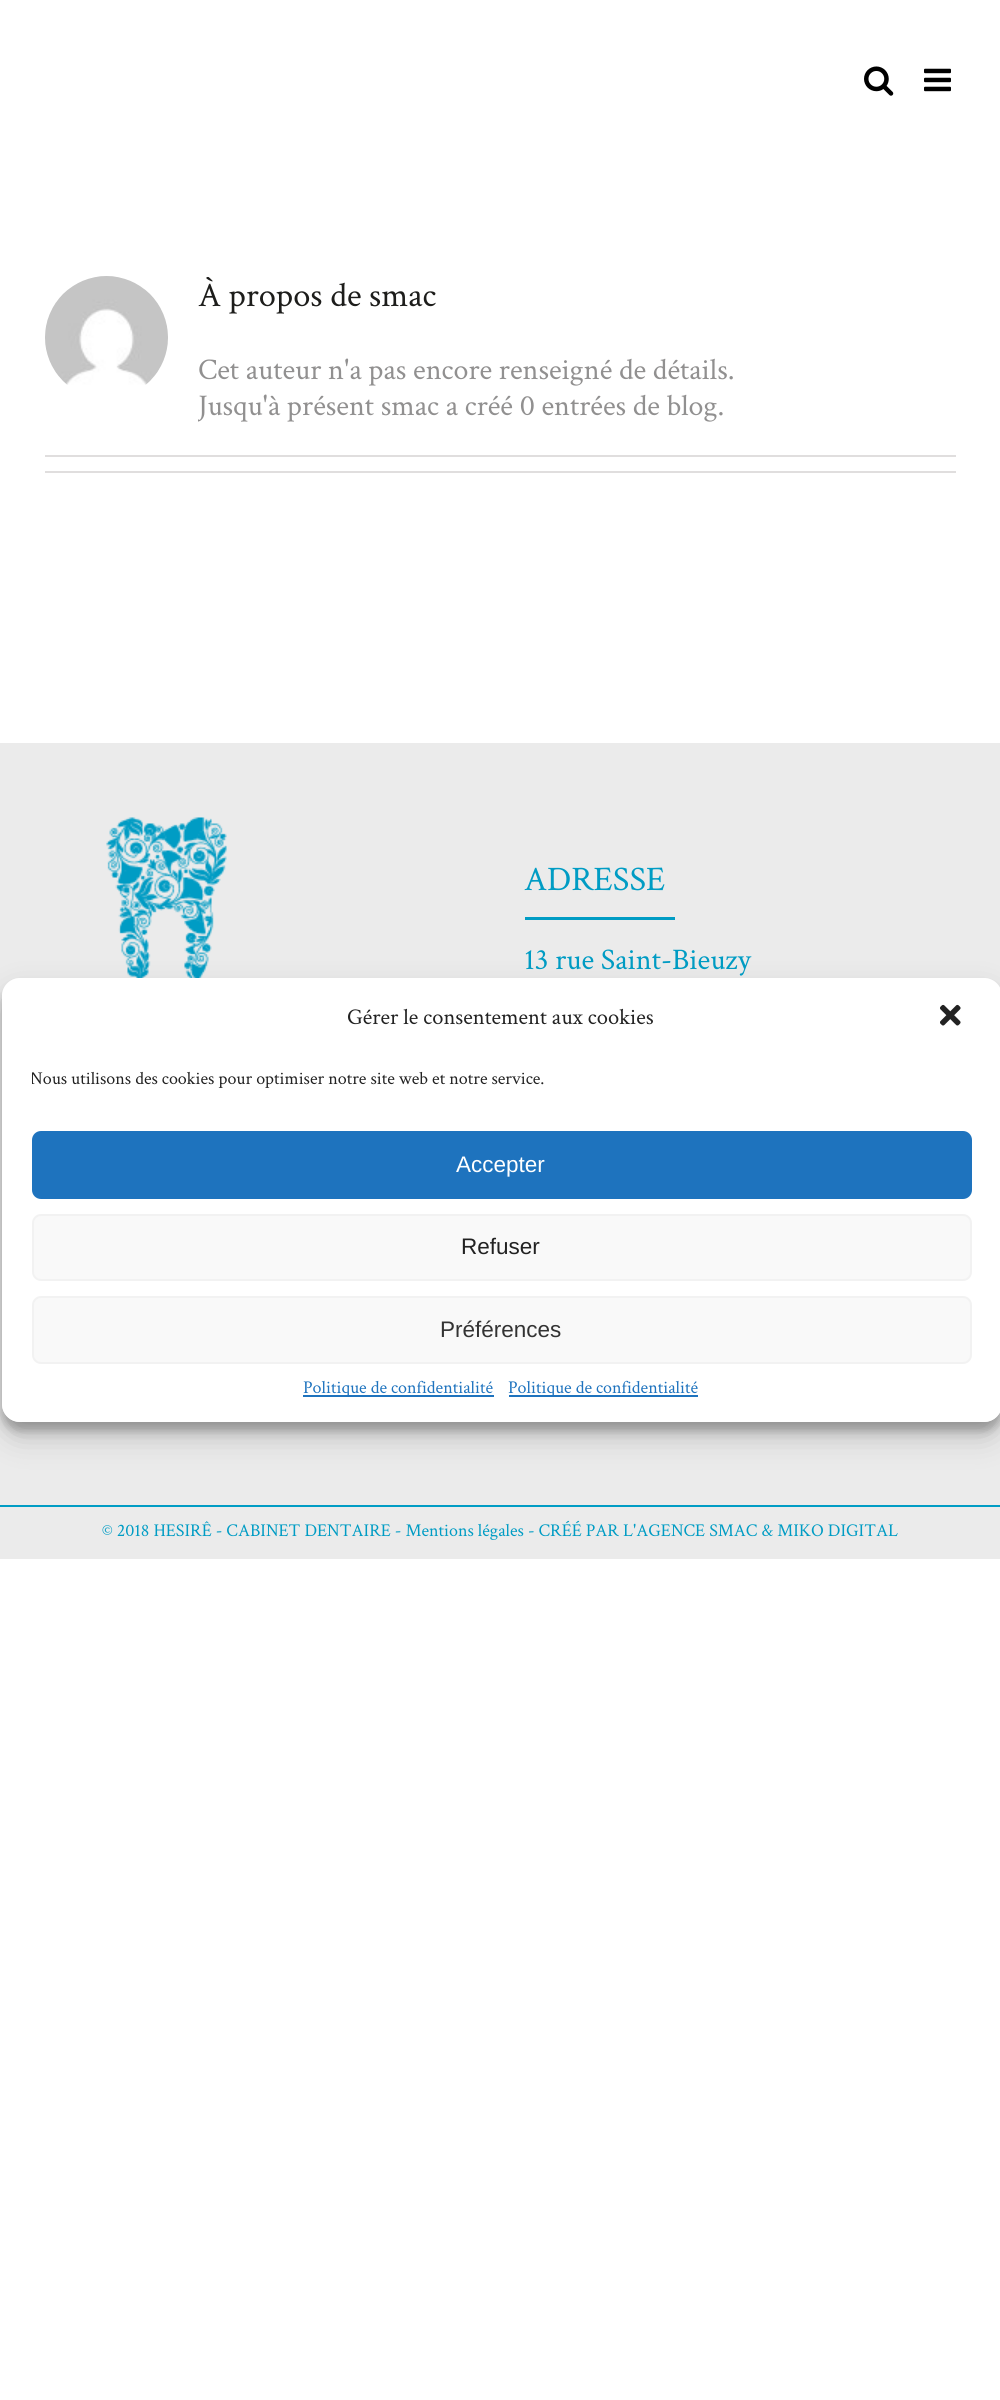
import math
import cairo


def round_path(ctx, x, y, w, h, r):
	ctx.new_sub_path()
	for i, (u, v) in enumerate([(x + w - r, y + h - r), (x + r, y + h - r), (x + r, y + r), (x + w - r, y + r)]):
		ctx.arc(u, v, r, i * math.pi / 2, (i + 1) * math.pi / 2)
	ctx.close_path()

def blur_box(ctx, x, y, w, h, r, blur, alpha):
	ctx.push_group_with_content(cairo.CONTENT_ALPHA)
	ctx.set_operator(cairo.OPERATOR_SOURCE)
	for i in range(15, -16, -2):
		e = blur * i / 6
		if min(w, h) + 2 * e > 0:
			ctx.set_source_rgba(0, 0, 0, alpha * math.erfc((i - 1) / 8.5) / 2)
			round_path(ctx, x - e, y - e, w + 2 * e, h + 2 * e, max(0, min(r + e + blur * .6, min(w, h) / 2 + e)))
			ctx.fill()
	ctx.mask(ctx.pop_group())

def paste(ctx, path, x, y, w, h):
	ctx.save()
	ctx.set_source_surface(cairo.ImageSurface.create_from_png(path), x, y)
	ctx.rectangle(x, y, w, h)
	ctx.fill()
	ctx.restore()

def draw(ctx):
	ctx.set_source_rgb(1, 1, 1)
	ctx.paint()
	paste(ctx, 'media/1.png', 864, 66, 30, 30)
	paste(ctx, 'media/2.png', 924, 68, 27, 24)
	paste(ctx, 'media/3.png', 45, 276, 123, 109)
	ctx.select_font_face('Crimson Text')
	ctx.set_font_size(34.5)
	ctx.set_source_rgb(0.114, 0.114, 0.106)
	ctx.move_to(198, 306)
	ctx.show_text('À propos de smac')
	ctx.set_font_size(30)
	ctx.set_source_rgb(0.569, 0.565, 0.565)
	ctx.move_to(198, 379)
	ctx.show_text('Cet auteur n\'a pas encore renseigné de détails.')
	ctx.save()
	ctx.rectangle(198, 276, 758, 149)
	ctx.clip()
	ctx.move_to(198, 415)
	ctx.show_text('Jusqu\'à présent smac a créé 0 entrées de blog.')
	ctx.restore()
	ctx.set_source_rgb(0.878, 0.871, 0.871)
	ctx.rectangle(45, 455, 911, 2)
	ctx.rectangle(45, 471, 911, 2)
	ctx.fill()
	ctx.set_source_rgb(0.918, 0.918, 0.918)
	ctx.rectangle(0, 743, 1000, 762)
	ctx.fill()
	paste(ctx, 'media/4.png', 106, 817, 121, 161)
	ctx.set_font_size(34.5)
	ctx.set_source_rgb(0, 0.612, 0.769)
	ctx.move_to(524, 890)
	ctx.show_text('ADRESSE')
	ctx.rectangle(525, 917, 150, 3)
	ctx.fill()
	ctx.set_font_size(30)
	ctx.move_to(524, 969)
	ctx.show_text('13 rue Saint-Bieuzy')
	ctx.set_source_rgb(0.918, 0.918, 0.918)
	ctx.rectangle(0, 1507, 1000, 52)
	ctx.fill()
	ctx.set_source_rgb(0, 0.612, 0.769)
	ctx.rectangle(0, 1505, 1000, 2)
	ctx.fill()
	ctx.set_font_size(18)
	ctx.move_to(102, 1536)
	ctx.show_text('© 2018 HESIRÊ - CABINET DENTAIRE - Mentions légales - CRÉÉ PAR L\'AGENCE SMAC & MIKO DIGITAL')
	ctx.save()
	ctx.set_fill_rule(cairo.FILL_RULE_EVEN_ODD)
	ctx.new_path()
	ctx.move_to(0, 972)
	ctx.line_to(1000, 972)
	ctx.line_to(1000, 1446)
	ctx.line_to(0, 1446)
	ctx.close_path()
	ctx.move_to(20, 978)
	ctx.line_to(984, 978)
	ctx.curve_to(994, 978, 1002, 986, 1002, 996)
	ctx.line_to(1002, 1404)
	ctx.curve_to(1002, 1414, 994, 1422, 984, 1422)
	ctx.line_to(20, 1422)
	ctx.curve_to(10, 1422, 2, 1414, 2, 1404)
	ctx.line_to(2, 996)
	ctx.curve_to(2, 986, 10, 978, 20, 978)
	ctx.close_path()
	ctx.clip()
	ctx.set_source_rgb(0, 0, 0)
	blur_box(ctx, 2, 987, 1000, 444, 18, 4.5, 0.23)
	ctx.restore()
	ctx.save()
	ctx.set_fill_rule(cairo.FILL_RULE_EVEN_ODD)
	ctx.new_path()
	ctx.move_to(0, 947)
	ctx.line_to(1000, 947)
	ctx.line_to(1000, 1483)
	ctx.line_to(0, 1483)
	ctx.close_path()
	ctx.move_to(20, 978)
	ctx.line_to(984, 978)
	ctx.curve_to(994, 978, 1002, 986, 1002, 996)
	ctx.line_to(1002, 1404)
	ctx.curve_to(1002, 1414, 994, 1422, 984, 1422)
	ctx.line_to(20, 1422)
	ctx.curve_to(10, 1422, 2, 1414, 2, 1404)
	ctx.line_to(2, 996)
	ctx.curve_to(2, 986, 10, 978, 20, 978)
	ctx.close_path()
	ctx.clip()
	ctx.set_source_rgb(0, 0, 0)
	blur_box(ctx, 2, 993, 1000, 444, 18, 15, 0.19)
	ctx.restore()
	ctx.set_source_rgb(1, 1, 1)
	round_path(ctx, 2, 978, 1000, 444, 18)
	ctx.fill()
	ctx.set_font_size(22.5)
	ctx.set_source_rgb(0.133, 0.133, 0.133)
	ctx.move_to(347, 1024)
	ctx.show_text('Gérer le consentement aux cookies')
	paste(ctx, 'media/5.png', 940, 1004, 21, 22)
	ctx.save()
	ctx.rectangle(32, 1067, 940, 34)
	ctx.clip()
	ctx.set_font_size(18)
	ctx.move_to(30, 1084)
	ctx.show_text('Nous utilisons des cookies pour optimiser notre site web et notre service.')
	ctx.restore()
	ctx.set_source_rgb(0.118, 0.451, 0.745)
	round_path(ctx, 33, 1132, 938, 66, 8)
	ctx.fill_preserve()
	ctx.stroke()
	ctx.select_font_face('Liberation Sans')
	ctx.set_source_rgb(1, 1, 1)
	ctx.move_to(456, 1172)
	ctx.show_text('Accepter')
	ctx.set_source_rgb(0.976, 0.976, 0.976)
	round_path(ctx, 33, 1215, 938, 65, 8)
	ctx.fill_preserve()
	ctx.set_source_rgb(0.949, 0.949, 0.949)
	ctx.stroke()
	ctx.set_source_rgb(0.133, 0.133, 0.133)
	ctx.move_to(461, 1254)
	ctx.show_text('Refuser')
	ctx.set_source_rgb(0.976, 0.976, 0.976)
	round_path(ctx, 33, 1297, 938, 66, 8)
	ctx.fill_preserve()
	ctx.set_source_rgb(0.949, 0.949, 0.949)
	ctx.stroke()
	ctx.set_source_rgb(0.2, 0.2, 0.2)
	ctx.move_to(440, 1337)
	ctx.show_text('Préférences')
	ctx.set_source_rgb(0.118, 0.451, 0.745)
	ctx.rectangle(303, 1395, 191, 2)
	ctx.fill()
	ctx.select_font_face('Crimson Text')
	ctx.set_font_size(18)
	ctx.move_to(303, 1393)
	ctx.show_text('Politique de confidentialité')
	ctx.rectangle(509, 1395, 189, 2)
	ctx.fill()
	ctx.move_to(508, 1393)
	ctx.show_text('Politique de confidentialité')


surface = cairo.ImageSurface(cairo.FORMAT_RGB24, 1000, 2400)
ctx = cairo.Context(surface)
options = cairo.FontOptions()
options.set_hint_metrics(cairo.HINT_METRICS_OFF)
options.set_hint_style(cairo.HINT_STYLE_NONE)
ctx.set_font_options(options)
ctx.set_miter_limit(4)
draw(ctx)
surface.write_to_png('image.png')
